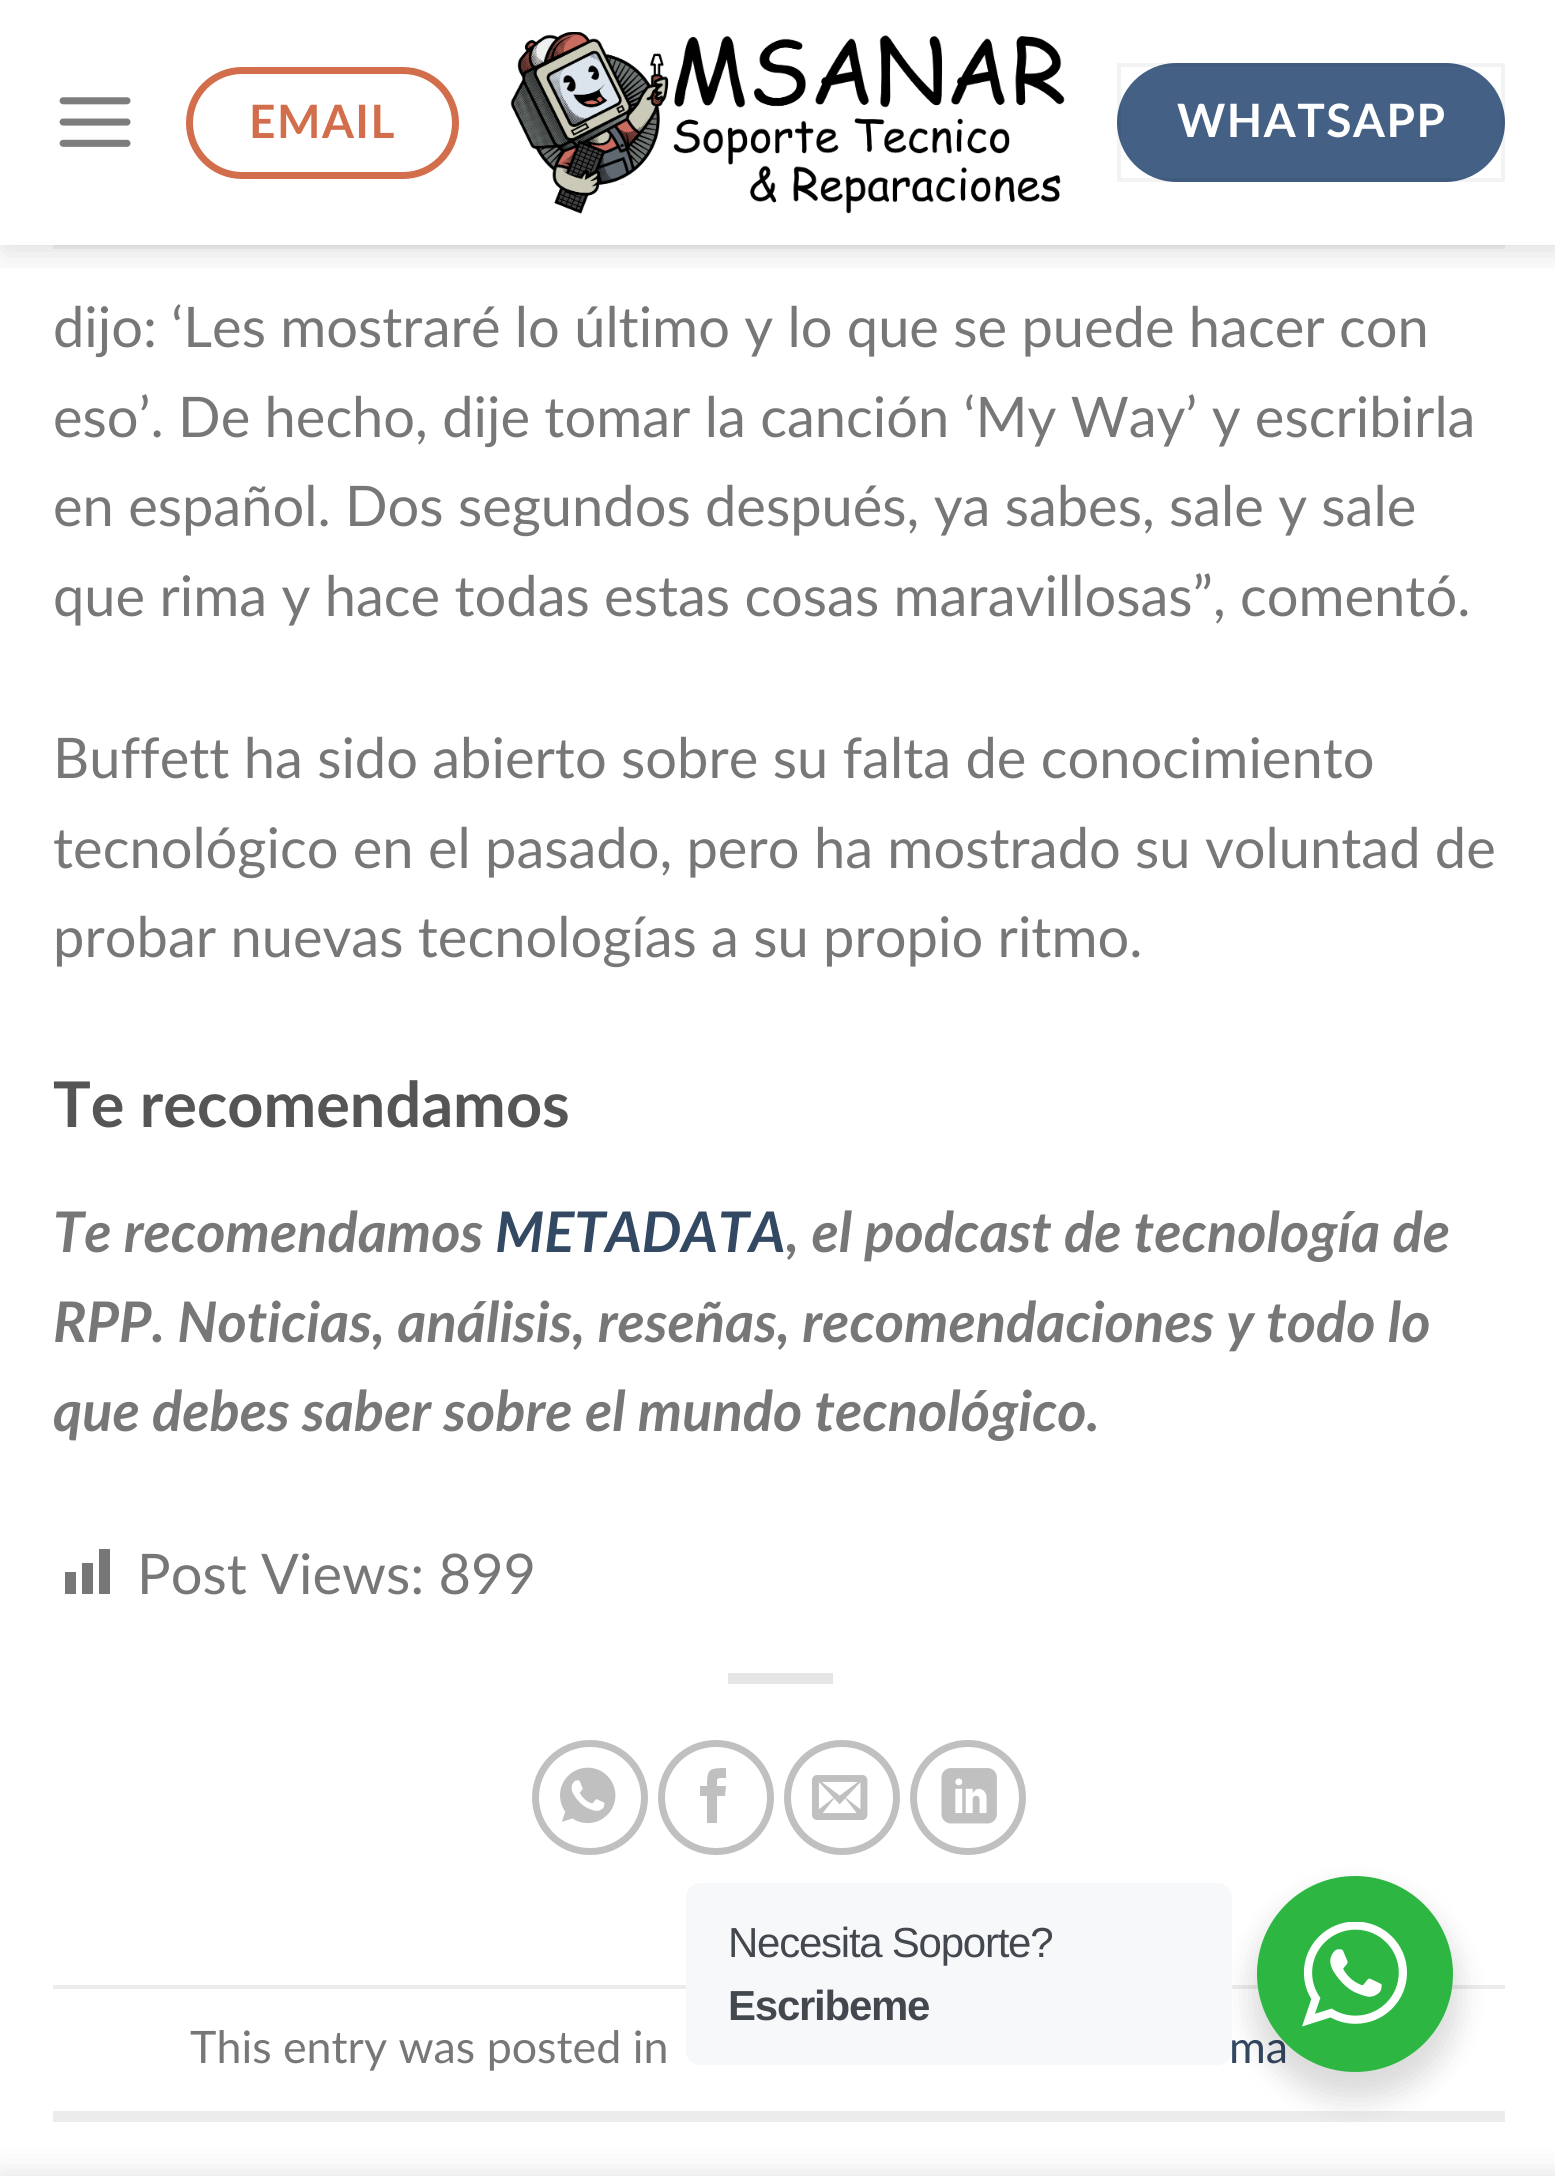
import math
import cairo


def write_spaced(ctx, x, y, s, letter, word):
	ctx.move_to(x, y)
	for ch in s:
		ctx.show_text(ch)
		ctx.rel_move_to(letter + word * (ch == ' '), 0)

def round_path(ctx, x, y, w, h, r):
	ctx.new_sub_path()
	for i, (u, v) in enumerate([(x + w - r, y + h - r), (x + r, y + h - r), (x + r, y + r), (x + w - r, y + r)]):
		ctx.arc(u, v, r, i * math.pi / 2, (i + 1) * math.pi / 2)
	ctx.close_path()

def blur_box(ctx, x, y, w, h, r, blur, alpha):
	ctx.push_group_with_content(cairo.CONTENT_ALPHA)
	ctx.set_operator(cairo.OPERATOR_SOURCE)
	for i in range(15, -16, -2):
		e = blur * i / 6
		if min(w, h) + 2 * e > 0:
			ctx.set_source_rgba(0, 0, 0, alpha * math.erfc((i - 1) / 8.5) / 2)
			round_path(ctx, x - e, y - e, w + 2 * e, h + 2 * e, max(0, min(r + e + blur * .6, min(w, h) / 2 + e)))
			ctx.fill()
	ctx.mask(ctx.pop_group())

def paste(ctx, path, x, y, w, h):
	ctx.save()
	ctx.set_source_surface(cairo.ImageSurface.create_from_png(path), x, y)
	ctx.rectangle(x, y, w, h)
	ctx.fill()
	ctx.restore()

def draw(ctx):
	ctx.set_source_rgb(1, 1, 1)
	ctx.paint()
	ctx.save()
	ctx.rectangle(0, 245, 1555, 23)
	ctx.clip()
	ctx.set_source_rgb(0, 0, 0)
	blur_box(ctx, 4, 4, 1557, 245, 0, 17.5, 0.15)
	ctx.restore()
	paste(ctx, 'media/1.png', 59, 97, 72, 50)
	round_path(ctx, 189.5, 70.5, 266, 105, 52.5)
	ctx.set_source_rgb(0.824, 0.431, 0.294)
	ctx.set_line_width(7)
	ctx.stroke()
	ctx.select_font_face('Lato', cairo.FONT_SLANT_NORMAL, cairo.FONT_WEIGHT_BOLD)
	ctx.set_font_size(46)
	write_spaced(ctx, 249, 138, 'EMAIL', 1.5, 0)
	paste(ctx, 'media/2.png', 510, 32, 555, 182)
	ctx.set_source_rgb(0.267, 0.376, 0.518)
	round_path(ctx, 1117, 63, 388, 119, 59.5)
	ctx.fill()
	ctx.rectangle(1119, 65, 384, 115)
	ctx.set_source_rgba(0, 0, 0, 0.05)
	ctx.set_line_width(4)
	ctx.stroke()
	ctx.set_source_rgb(1, 1, 1)
	write_spaced(ctx, 1177, 137, 'WHATSAPP', 1.5, 0)
	ctx.set_source_rgba(0.467, 0.467, 0.467, 0.1)
	ctx.rectangle(53, 245, 1452, 4)
	ctx.fill()
	ctx.select_font_face('Lato')
	ctx.set_font_size(56)
	ctx.set_source_rgb(0.467, 0.467, 0.467)
	for x, y, s in [
		(53, 347, 'dijo: ‘Les mostraré lo último y lo que se puede hacer con'),
		(53, 437, 'eso’. De hecho, dije tomar la canción ‘My Way’ y escribirla'),
		(53, 526, 'en español. Dos segundos después, ya sabes, sale y sale'),
		(53, 616, 'que rima y hace todas estas cosas maravillosas”, comentó.'),
		(53, 778, 'Buffett ha sido abierto sobre su falta de conocimiento'),
		(53, 868, 'tecnológico en el pasado, pero ha mostrado su voluntad de'),
		(53, 957, 'probar nuevas tecnologías a su propio ritmo.'),
	]:
		ctx.move_to(x, y)
		ctx.show_text(s)
	ctx.select_font_face('Lato', cairo.FONT_SLANT_NORMAL, cairo.FONT_WEIGHT_BOLD)
	ctx.set_font_size(63)
	ctx.set_source_rgb(0.333, 0.333, 0.333)
	ctx.move_to(53, 1127)
	ctx.show_text('Te recomendamos')
	ctx.select_font_face('Lato', cairo.FONT_SLANT_ITALIC, cairo.FONT_WEIGHT_BOLD)
	ctx.set_font_size(56)
	ctx.set_source_rgb(0.467, 0.467, 0.467)
	ctx.move_to(53, 1252)
	ctx.show_text('Te recomendamos')
	ctx.set_source_rgb(0.2, 0.282, 0.384)
	ctx.move_to(495, 1252)
	ctx.show_text('METADATA')
	ctx.set_source_rgb(0.467, 0.467, 0.467)
	for x, y, s in [
		(786, 1252, ', el podcast de tecnología de'),
		(53, 1342, 'RPP. Noticias, análisis, reseñas, recomendaciones y todo lo'),
		(53, 1431, 'que debes saber sobre el mundo tecnológico.'),
	]:
		ctx.move_to(x, y)
		ctx.show_text(s)
	ctx.new_path()
	ctx.move_to(110, 1594)
	ctx.line_to(110, 1549)
	ctx.line_to(99, 1549)
	ctx.line_to(99, 1594)
	ctx.close_path()
	ctx.move_to(93, 1594)
	ctx.line_to(93, 1563)
	ctx.line_to(82, 1563)
	ctx.line_to(82, 1594)
	ctx.close_path()
	ctx.move_to(76, 1594)
	ctx.line_to(76, 1572)
	ctx.line_to(65, 1572)
	ctx.line_to(65, 1594)
	ctx.close_path()
	ctx.fill()
	ctx.select_font_face('Lato')
	ctx.move_to(137, 1594)
	ctx.show_text('Post Views: 899')
	ctx.set_source_rgb(0.902, 0.902, 0.902)
	ctx.rectangle(728, 1673, 105, 11)
	ctx.fill()
	round_path(ctx, 535.5, 1743.5, 109, 108, 54)
	ctx.set_source_rgb(0.753, 0.753, 0.753)
	ctx.set_line_width(7)
	ctx.stroke()
	paste(ctx, 'media/3.png', 560, 1767, 56, 57)
	round_path(ctx, 661.5, 1743.5, 109, 108, 54)
	ctx.stroke()
	ctx.new_path()
	ctx.move_to(717, 1823)
	ctx.line_to(707, 1823)
	ctx.line_to(707, 1796)
	ctx.line_to(700, 1796)
	ctx.line_to(700, 1786)
	ctx.line_to(707, 1786)
	ctx.curve_to(707, 1769, 709, 1768, 726, 1768)
	ctx.line_to(726, 1778)
	ctx.curve_to(716, 1778, 717, 1777, 717, 1786)
	ctx.line_to(726, 1786)
	ctx.line_to(725, 1796)
	ctx.line_to(717, 1796)
	ctx.close_path()
	ctx.fill()
	round_path(ctx, 787.5, 1743.5, 109, 108, 54)
	ctx.stroke()
	paste(ctx, 'media/4.png', 812, 1775, 56, 45)
	round_path(ctx, 913.5, 1743.5, 109, 108, 54)
	ctx.stroke()
	paste(ctx, 'media/5.png', 941, 1768, 56, 56)
	ctx.set_source_rgb(0.925, 0.925, 0.925)
	ctx.rectangle(53, 1985, 1452, 4)
	ctx.fill()
	ctx.rectangle(53, 2111, 1452, 11)
	ctx.fill()
	ctx.set_font_size(44.75)
	ctx.set_source_rgb(0.467, 0.467, 0.467)
	ctx.move_to(190, 2063)
	ctx.show_text('This entry was posted in')
	ctx.set_source_rgb(0.2, 0.282, 0.384)
	ctx.move_to(1229, 2063)
	ctx.show_text('ma')
	ctx.set_source_rgb(0, 0, 0)
	blur_box(ctx, 1250, 1890, 210, 210, 105, 14, 0.14)
	ctx.set_source_rgb(0.961, 0.969, 0.976)
	round_path(ctx, 686, 1883, 546, 182, 14)
	ctx.fill()
	ctx.select_font_face('Liberation Sans')
	ctx.set_font_size(42)
	ctx.set_source_rgb(0.263, 0.278, 0.306)
	write_spaced(ctx, 728, 1957, 'Necesita Soporte?', -1.25, 0)
	ctx.select_font_face('Liberation Sans', cairo.FONT_SLANT_NORMAL, cairo.FONT_WEIGHT_BOLD)
	write_spaced(ctx, 728, 2020, 'Escribeme', -1.25, 0)
	ctx.set_source_rgb(0.176, 0.718, 0.259)
	ctx.new_path()
	ctx.arc(1355, 1974, 98, 0, 2 * math.pi)
	ctx.fill()
	paste(ctx, 'media/6.png', 1302, 1922, 105, 105)
	ctx.set_source_rgb(0, 0, 0)
	blur_box(ctx, 0, 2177, 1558, 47, 0, 16, 0.14)


surface = cairo.ImageSurface(cairo.FORMAT_RGB24, 1555, 2176)
ctx = cairo.Context(surface)
options = cairo.FontOptions()
options.set_hint_metrics(cairo.HINT_METRICS_OFF)
options.set_hint_style(cairo.HINT_STYLE_NONE)
ctx.set_font_options(options)
ctx.set_miter_limit(4)
draw(ctx)
surface.write_to_png('image.png')
